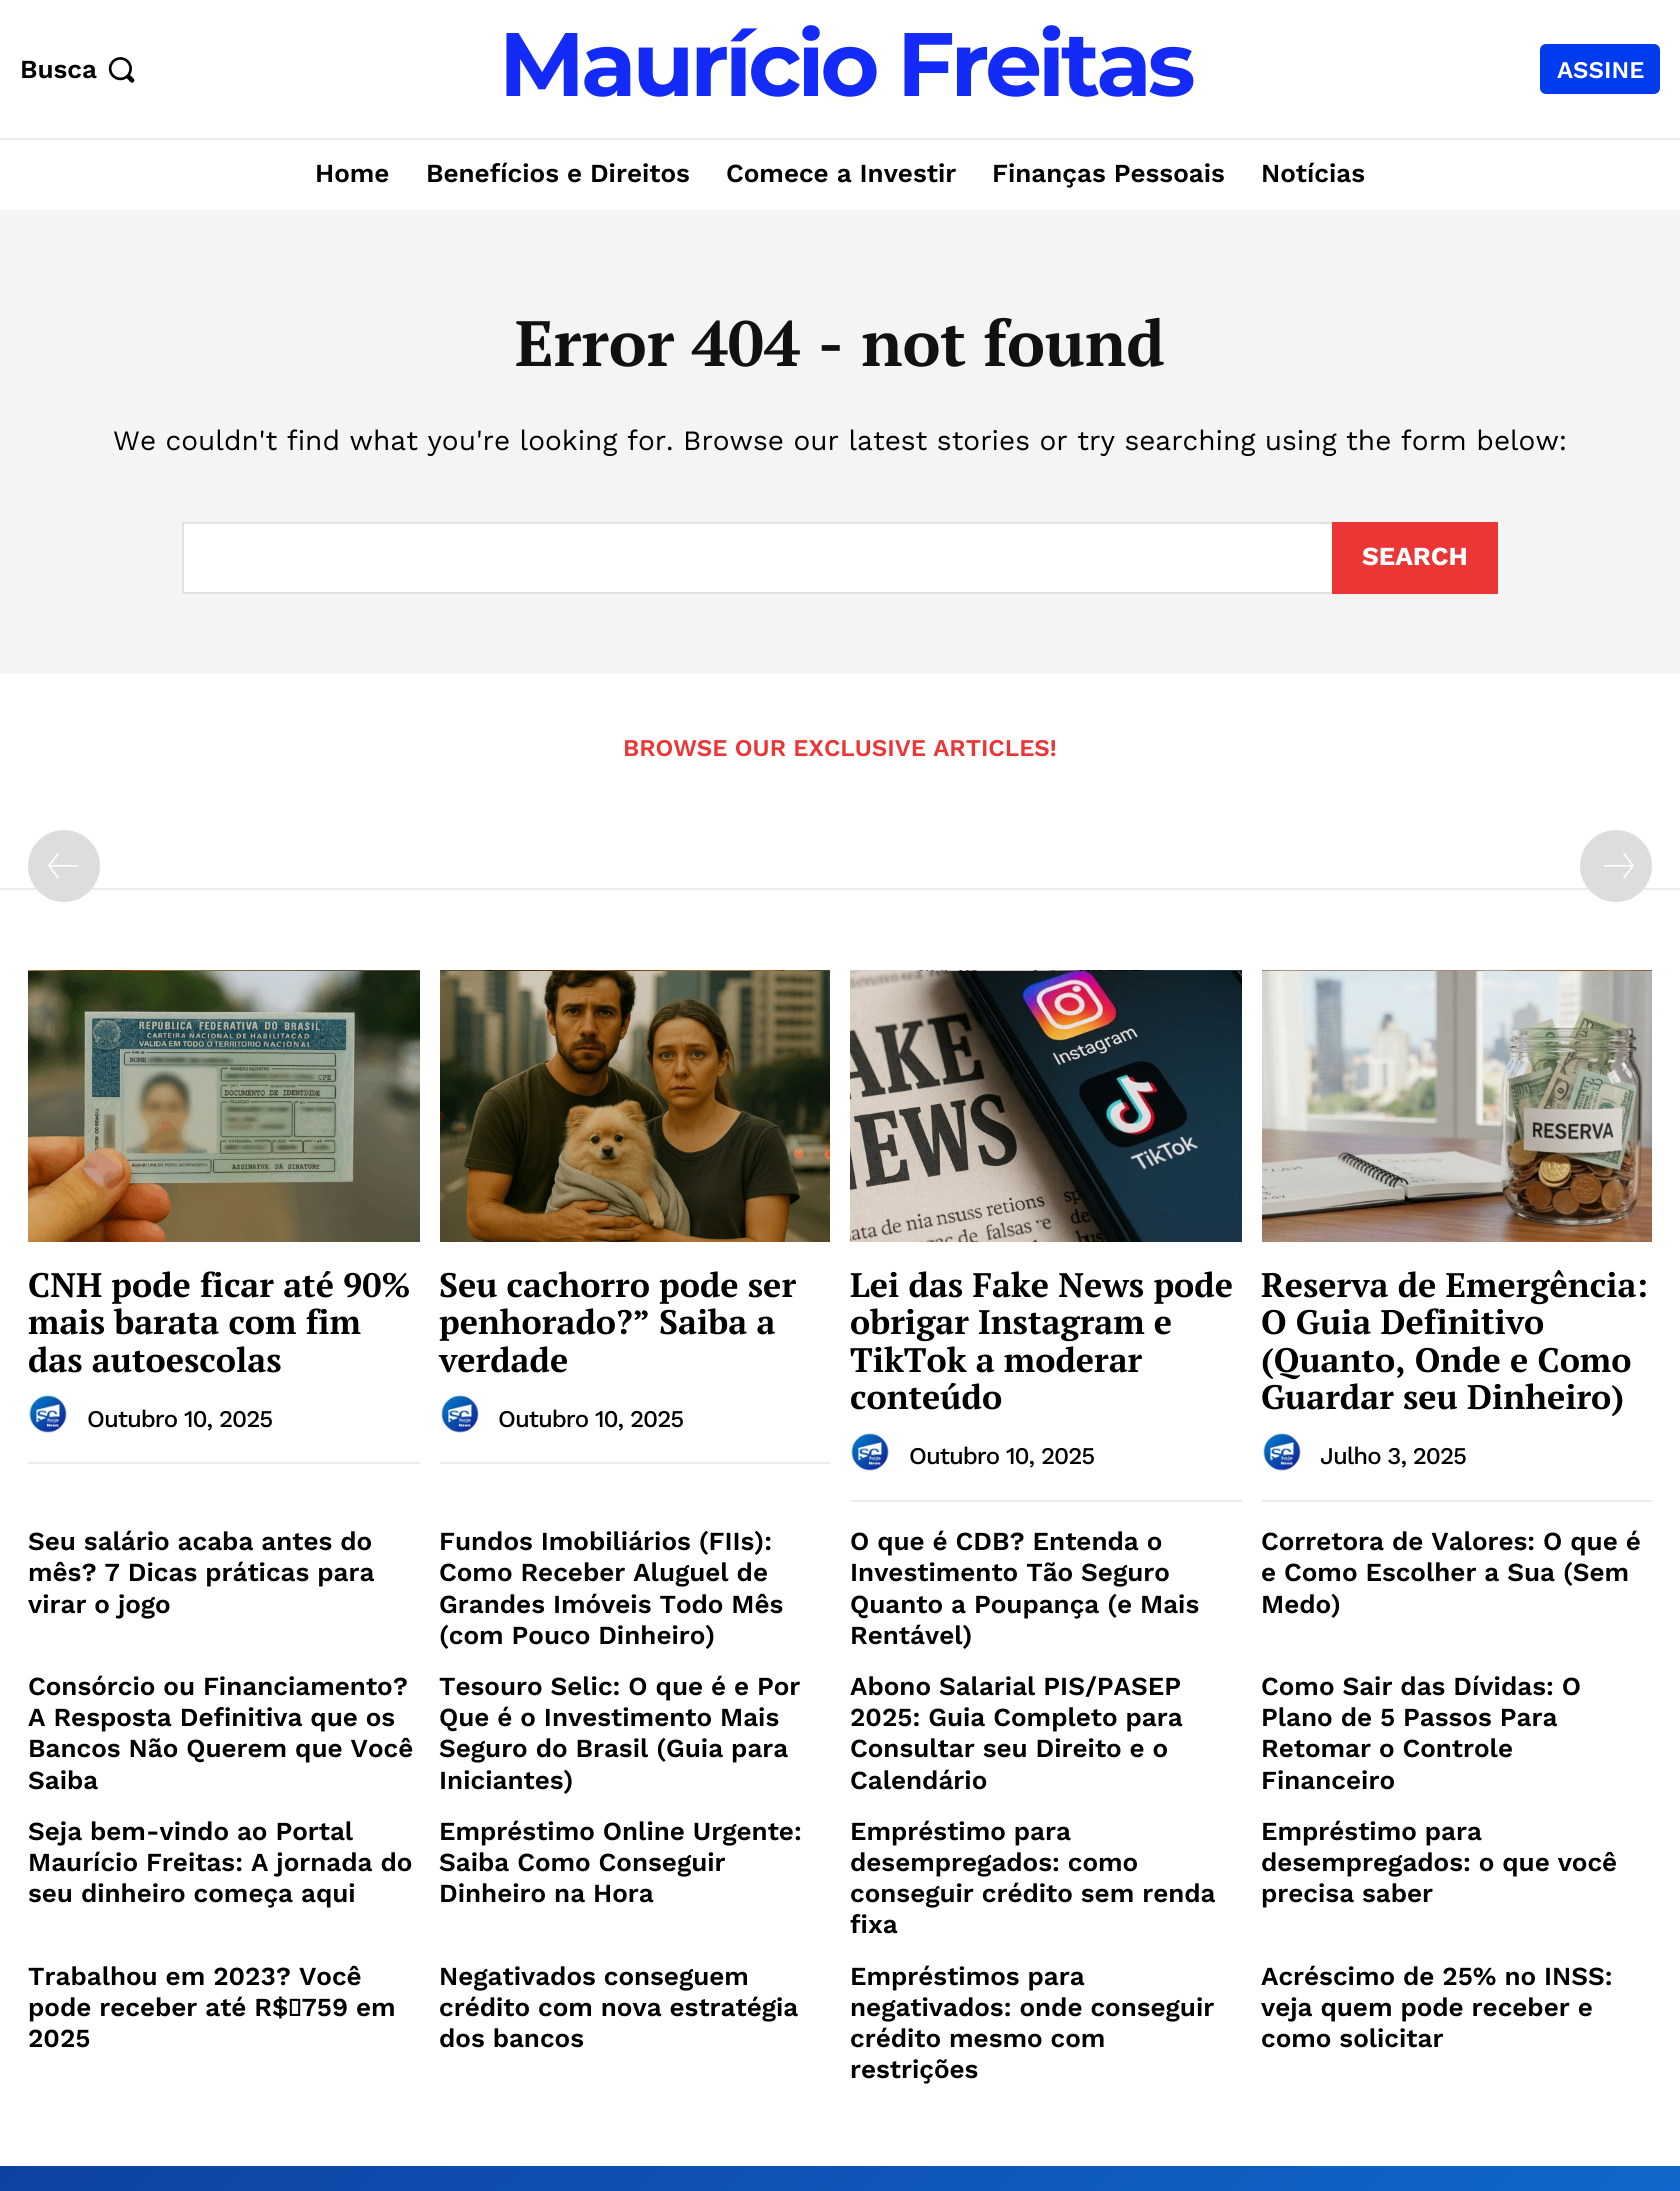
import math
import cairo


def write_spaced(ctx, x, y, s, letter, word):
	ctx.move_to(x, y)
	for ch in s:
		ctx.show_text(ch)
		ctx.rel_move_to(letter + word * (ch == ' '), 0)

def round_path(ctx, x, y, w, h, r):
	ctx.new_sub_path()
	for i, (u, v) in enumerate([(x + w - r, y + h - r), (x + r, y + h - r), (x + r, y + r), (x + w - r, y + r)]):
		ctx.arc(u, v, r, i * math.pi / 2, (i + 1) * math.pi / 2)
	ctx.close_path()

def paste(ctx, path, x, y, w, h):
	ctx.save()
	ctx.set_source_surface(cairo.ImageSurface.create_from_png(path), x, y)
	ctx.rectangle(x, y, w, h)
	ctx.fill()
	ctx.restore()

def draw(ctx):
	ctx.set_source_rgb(1, 1, 1)
	ctx.paint()
	ctx.select_font_face('Work Sans SemiBold')
	ctx.set_font_size(26)
	ctx.set_source_rgb(0, 0, 0)
	ctx.move_to(20, 78)
	ctx.show_text('Busca')
	paste(ctx, 'media/1.png', 108, 57, 27, 26)
	ctx.select_font_face('Montserrat', cairo.FONT_SLANT_NORMAL, cairo.FONT_WEIGHT_BOLD)
	ctx.set_font_size(90)
	ctx.set_source_rgb(0.082, 0.169, 0.969)
	write_spaced(ctx, 499, 96, 'Maurício Freitas', -4, 0)
	ctx.set_source_rgb(0, 0.231, 0.929)
	round_path(ctx, 1540, 44, 120, 50, 6)
	ctx.fill()
	ctx.select_font_face('Work Sans SemiBold')
	ctx.set_font_size(24)
	ctx.set_source_rgb(1, 1, 1)
	ctx.move_to(1557, 78)
	ctx.show_text('ASSINE')
	ctx.set_source_rgb(0.918, 0.918, 0.918)
	ctx.rectangle(0, 138, 1680, 2)
	ctx.fill()
	ctx.set_font_size(26)
	ctx.set_source_rgb(0, 0, 0)
	for x, y, s in [
		(315, 182, 'Home'),
		(426, 182, 'Benefícios e Direitos'),
		(726, 182, 'Comece a Investir'),
		(992, 182, 'Finanças Pessoais'),
		(1261, 182, 'Notícias'),
	]:
		ctx.move_to(x, y)
		ctx.show_text(s)
	ctx.set_source_rgb(0.957, 0.957, 0.957)
	ctx.rectangle(0, 210, 1680, 464)
	ctx.fill()
	ctx.select_font_face('PT Serif', cairo.FONT_SLANT_NORMAL, cairo.FONT_WEIGHT_BOLD)
	ctx.set_font_size(64)
	ctx.set_source_rgb(0.067, 0.067, 0.067)
	ctx.move_to(515, 366)
	ctx.show_text('Error 404 - not found')
	ctx.select_font_face('Work Sans')
	ctx.set_font_size(28)
	ctx.set_source_rgb(0, 0, 0)
	ctx.move_to(113, 450)
	ctx.show_text('We couldn\'t find what you\'re looking for. Browse our latest stories or try searching using the form below:')
	ctx.set_source_rgb(1, 1, 1)
	ctx.rectangle(184, 524, 1148, 68)
	ctx.fill()
	ctx.rectangle(183, 523, 1314, 70)
	ctx.set_source_rgb(0.882, 0.882, 0.882)
	ctx.stroke()
	ctx.set_source_rgb(0.925, 0.208, 0.208)
	ctx.rectangle(1332, 522, 166, 72)
	ctx.fill()
	ctx.select_font_face('Work Sans', cairo.FONT_SLANT_NORMAL, cairo.FONT_WEIGHT_BOLD)
	ctx.set_font_size(26)
	ctx.set_source_rgb(1, 1, 1)
	ctx.move_to(1362, 565)
	ctx.show_text('SEARCH')
	ctx.select_font_face('Work Sans SemiBold')
	ctx.set_font_size(24)
	ctx.set_source_rgb(0.925, 0.208, 0.208)
	ctx.move_to(623, 756)
	ctx.show_text('BROWSE OUR EXCLUSIVE ARTICLES!')
	ctx.set_source_rgb(0.918, 0.918, 0.918)
	ctx.rectangle(0, 888, 1680, 2)
	ctx.fill()
	ctx.set_source_rgb(0.867, 0.867, 0.867)
	ctx.arc(64, 866, 36, 0, 2 * math.pi)
	ctx.fill()
	ctx.set_source_rgb(1, 1, 1)
	ctx.new_path()
	ctx.move_to(59, 877.5)
	ctx.line_to(50.5, 866.5)
	ctx.line_to(78, 866.5)
	ctx.line_to(78, 865)
	ctx.line_to(50.5, 865)
	ctx.line_to(59, 854)
	ctx.line_to(57.5, 853)
	ctx.line_to(48, 865.5)
	ctx.line_to(57.5, 878.5)
	ctx.close_path()
	ctx.fill()
	ctx.set_source_rgb(0.867, 0.867, 0.867)
	ctx.arc(1616, 866, 36, 0, 2 * math.pi)
	ctx.fill()
	ctx.set_source_rgb(1, 1, 1)
	ctx.new_path()
	ctx.move_to(1623, 877.5)
	ctx.line_to(1624.5, 878.5)
	ctx.line_to(1634, 865.5)
	ctx.line_to(1624.5, 853)
	ctx.line_to(1623, 854)
	ctx.line_to(1631.5, 865)
	ctx.line_to(1604, 865)
	ctx.line_to(1604, 866.5)
	ctx.line_to(1631.5, 866.5)
	ctx.close_path()
	ctx.fill()
	ctx.set_source_rgb(0.918, 0.918, 0.918)
	ctx.rectangle(28, 1462, 392, 2)
	ctx.fill()
	paste(ctx, 'media/2.png', 28, 970, 392, 272)
	ctx.select_font_face('PT Serif', cairo.FONT_SLANT_NORMAL, cairo.FONT_WEIGHT_BOLD)
	ctx.set_font_size(34)
	ctx.set_source_rgb(0, 0, 0)
	for x, y, s in [
		(28, 1297, 'CNH pode ficar até 90%'),
		(28, 1334, 'mais barata com fim'),
		(28, 1372, 'das autoescolas'),
	]:
		ctx.move_to(x, y)
		ctx.show_text(s)
	paste(ctx, 'media/3.png', 28, 1394, 40, 40)
	ctx.select_font_face('Work Sans Medium')
	ctx.set_font_size(24)
	write_spaced(ctx, 87, 1427, 'Outubro 10, 2025', -1, 0)
	ctx.set_source_rgb(0.918, 0.918, 0.918)
	ctx.rectangle(440, 1462, 390, 2)
	ctx.fill()
	paste(ctx, 'media/4.png', 440, 970, 390, 272)
	ctx.select_font_face('PT Serif', cairo.FONT_SLANT_NORMAL, cairo.FONT_WEIGHT_BOLD)
	ctx.set_font_size(34)
	ctx.set_source_rgb(0, 0, 0)
	for x, y, s in [
		(439, 1297, 'Seu cachorro pode ser'),
		(439, 1334, 'penhorado?” Saiba a'),
		(439, 1372, 'verdade'),
	]:
		ctx.move_to(x, y)
		ctx.show_text(s)
	paste(ctx, 'media/5.png', 440, 1394, 40, 40)
	ctx.select_font_face('Work Sans Medium')
	ctx.set_font_size(24)
	write_spaced(ctx, 498, 1427, 'Outubro 10, 2025', -1, 0)
	ctx.set_source_rgb(0.918, 0.918, 0.918)
	ctx.rectangle(850, 1500, 392, 2)
	ctx.fill()
	paste(ctx, 'media/6.png', 850, 970, 392, 272)
	ctx.select_font_face('PT Serif', cairo.FONT_SLANT_NORMAL, cairo.FONT_WEIGHT_BOLD)
	ctx.set_font_size(34)
	ctx.set_source_rgb(0, 0, 0)
	for x, y, s in [
		(850, 1297, 'Lei das Fake News pode'),
		(850, 1334, 'obrigar Instagram e'),
		(850, 1372, 'TikTok a moderar'),
		(850, 1409, 'conteúdo'),
	]:
		ctx.move_to(x, y)
		ctx.show_text(s)
	paste(ctx, 'media/7.png', 850, 1432, 40, 40)
	ctx.select_font_face('Work Sans Medium')
	ctx.set_font_size(24)
	write_spaced(ctx, 909, 1464, 'Outubro 10, 2025', -1, 0)
	ctx.set_source_rgb(0.918, 0.918, 0.918)
	ctx.rectangle(1262, 1500, 390, 2)
	ctx.fill()
	paste(ctx, 'media/8.png', 1262, 970, 390, 272)
	ctx.select_font_face('PT Serif', cairo.FONT_SLANT_NORMAL, cairo.FONT_WEIGHT_BOLD)
	ctx.set_font_size(34)
	ctx.set_source_rgb(0, 0, 0)
	for x, y, s in [
		(1261, 1297, 'Reserva de Emergência:'),
		(1261, 1334, 'O Guia Definitivo'),
		(1261, 1372, '(Quanto, Onde e Como'),
		(1261, 1409, 'Guardar seu Dinheiro)'),
	]:
		ctx.move_to(x, y)
		ctx.show_text(s)
	paste(ctx, 'media/9.png', 1262, 1432, 40, 40)
	ctx.select_font_face('Work Sans Medium')
	ctx.set_font_size(24)
	write_spaced(ctx, 1320, 1464, 'Julho 3, 2025', -1, 0)
	ctx.select_font_face('Work Sans SemiBold')
	ctx.set_font_size(26)
	for x, y, s in [
		(28, 1550, 'Seu salário acaba antes do'),
		(28, 1581, 'mês? 7 Dicas práticas para'),
		(28, 1613, 'virar o jogo'),
		(439, 1550, 'Fundos Imobiliários (FIIs):'),
		(439, 1581, 'Como Receber Aluguel de'),
		(439, 1613, 'Grandes Imóveis Todo Mês'),
		(439, 1644, '(com Pouco Dinheiro)'),
		(850, 1550, 'O que é CDB? Entenda o'),
		(850, 1581, 'Investimento Tão Seguro'),
		(850, 1613, 'Quanto a Poupança (e Mais'),
		(850, 1644, 'Rentável)'),
		(1261, 1550, 'Corretora de Valores: O que é'),
		(1261, 1581, 'e Como Escolher a Sua (Sem'),
		(1261, 1613, 'Medo)'),
		(28, 1695, 'Consórcio ou Financiamento?'),
		(28, 1726, 'A Resposta Definitiva que os'),
		(28, 1757, 'Bancos Não Querem que Você'),
		(28, 1789, 'Saiba'),
		(439, 1695, 'Tesouro Selic: O que é e Por'),
		(439, 1726, 'Que é o Investimento Mais'),
		(439, 1757, 'Seguro do Brasil (Guia para'),
		(439, 1789, 'Iniciantes)'),
		(850, 1695, 'Abono Salarial PIS/PASEP'),
		(850, 1726, '2025: Guia Completo para'),
		(850, 1757, 'Consultar seu Direito e o'),
		(850, 1789, 'Calendário'),
		(1261, 1695, 'Como Sair das Dívidas: O'),
		(1261, 1726, 'Plano de 5 Passos Para'),
		(1261, 1757, 'Retomar o Controle'),
		(1261, 1789, 'Financeiro'),
		(28, 1840, 'Seja bem-vindo ao Portal'),
		(28, 1871, 'Maurício Freitas: A jornada do'),
		(28, 1902, 'seu dinheiro começa aqui'),
		(439, 1840, 'Empréstimo Online Urgente:'),
		(439, 1871, 'Saiba Como Conseguir'),
		(439, 1902, 'Dinheiro na Hora'),
		(850, 1840, 'Empréstimo para'),
		(850, 1871, 'desempregados: como'),
		(850, 1902, 'conseguir crédito sem renda'),
		(850, 1933, 'fixa'),
		(1261, 1840, 'Empréstimo para'),
		(1261, 1871, 'desempregados: o que você'),
		(1261, 1902, 'precisa saber'),
		(28, 1985, 'Trabalhou em 2023? Você'),
		(28, 2016, 'pode receber até R$ 759 em'),
		(28, 2047, '2025'),
		(439, 1985, 'Negativados conseguem'),
		(439, 2016, 'crédito com nova estratégia'),
		(439, 2047, 'dos bancos'),
		(850, 1985, 'Empréstimos para'),
		(850, 2016, 'negativados: onde conseguir'),
		(850, 2047, 'crédito mesmo com'),
		(850, 2078, 'restrições'),
		(1261, 1985, 'Acréscimo de 25% no INSS:'),
		(1261, 2016, 'veja quem pode receber e'),
		(1261, 2047, 'como solicitar'),
	]:
		ctx.move_to(x, y)
		ctx.show_text(s)
	gradient = cairo.LinearGradient(1298, 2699, 383, 1784)
	gradient.add_color_stop_rgba(0, 0.067, 0.416, 0.808, 1)
	gradient.add_color_stop_rgba(1, 0.051, 0.259, 0.635, 1)
	ctx.set_source(gradient)
	ctx.rectangle(0, 2166, 1680, 25)
	ctx.fill()


surface = cairo.ImageSurface(cairo.FORMAT_RGB24, 1680, 2191)
ctx = cairo.Context(surface)
options = cairo.FontOptions()
options.set_hint_metrics(cairo.HINT_METRICS_OFF)
options.set_hint_style(cairo.HINT_STYLE_NONE)
ctx.set_font_options(options)
ctx.set_miter_limit(4)
draw(ctx)
surface.write_to_png('image.png')
